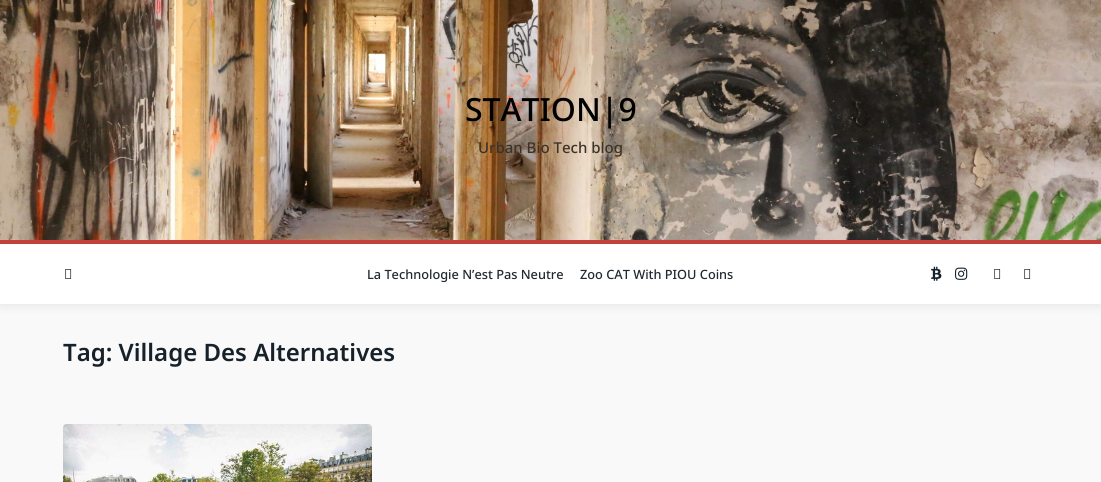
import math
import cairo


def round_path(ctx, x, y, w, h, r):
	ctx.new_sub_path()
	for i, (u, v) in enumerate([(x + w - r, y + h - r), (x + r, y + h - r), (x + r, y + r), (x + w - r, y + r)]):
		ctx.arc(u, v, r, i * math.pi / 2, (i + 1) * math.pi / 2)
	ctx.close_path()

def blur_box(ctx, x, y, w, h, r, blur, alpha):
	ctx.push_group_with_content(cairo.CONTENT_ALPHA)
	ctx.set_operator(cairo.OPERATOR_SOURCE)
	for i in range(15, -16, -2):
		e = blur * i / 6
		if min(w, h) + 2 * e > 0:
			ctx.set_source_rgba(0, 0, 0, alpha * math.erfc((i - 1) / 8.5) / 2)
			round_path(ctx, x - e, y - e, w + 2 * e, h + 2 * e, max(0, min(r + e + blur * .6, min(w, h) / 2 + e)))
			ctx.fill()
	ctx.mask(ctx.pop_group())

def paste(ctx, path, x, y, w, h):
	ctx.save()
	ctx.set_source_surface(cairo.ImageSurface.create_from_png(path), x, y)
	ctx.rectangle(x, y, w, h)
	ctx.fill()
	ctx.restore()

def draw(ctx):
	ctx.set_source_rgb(0.973, 0.976, 0.973)
	ctx.paint()
	ctx.set_source_rgb(0.173, 0.243, 0.314)
	blur_box(ctx, 0, 242, 1101, 64, 0, 5, 0.1)
	paste(ctx, 'media/1.png', 0, 0, 1101, 240)
	ctx.select_font_face('Noto Sans Medium')
	ctx.set_font_size(32)
	ctx.set_source_rgb(0, 0, 0)
	ctx.move_to(465, 121)
	ctx.show_text('STATION|9')
	ctx.set_font_size(15)
	ctx.set_source_rgb(0.231, 0.196, 0.157)
	ctx.move_to(478, 153)
	ctx.show_text('Urban Bio Tech blog')
	ctx.set_source_rgb(1, 1, 1)
	ctx.rectangle(0, 244, 1101, 60)
	ctx.fill()
	ctx.set_source_rgb(0.769, 0.251, 0.231)
	ctx.rectangle(0, 240, 1101, 4)
	ctx.fill()
	paste(ctx, 'media/2.png', 65, 269, 7, 10)
	ctx.set_font_size(12.75)
	ctx.set_source_rgb(0.129, 0.165, 0.2)
	ctx.move_to(367, 279)
	ctx.show_text('La Technologie N’est Pas Neutre')
	ctx.move_to(580, 279)
	ctx.show_text('Zoo CAT With PIOU Coins')
	paste(ctx, 'media/3.png', 931, 266, 11, 15)
	paste(ctx, 'media/4.png', 955, 267, 13, 13)
	paste(ctx, 'media/2.png', 994, 269, 7, 10)
	paste(ctx, 'media/2.png', 1024, 269, 7, 10)
	ctx.select_font_face('Noto Sans SemiBold')
	ctx.set_font_size(24)
	ctx.set_source_rgb(0.09, 0.129, 0.165)
	ctx.move_to(63, 361)
	ctx.show_text('Tag: Village Des Alternatives')
	paste(ctx, 'media/5.png', 63, 424, 309, 58)


surface = cairo.ImageSurface(cairo.FORMAT_RGB24, 1101, 482)
ctx = cairo.Context(surface)
options = cairo.FontOptions()
options.set_hint_metrics(cairo.HINT_METRICS_OFF)
options.set_hint_style(cairo.HINT_STYLE_NONE)
ctx.set_font_options(options)
ctx.set_miter_limit(4)
draw(ctx)
surface.write_to_png('image.png')
